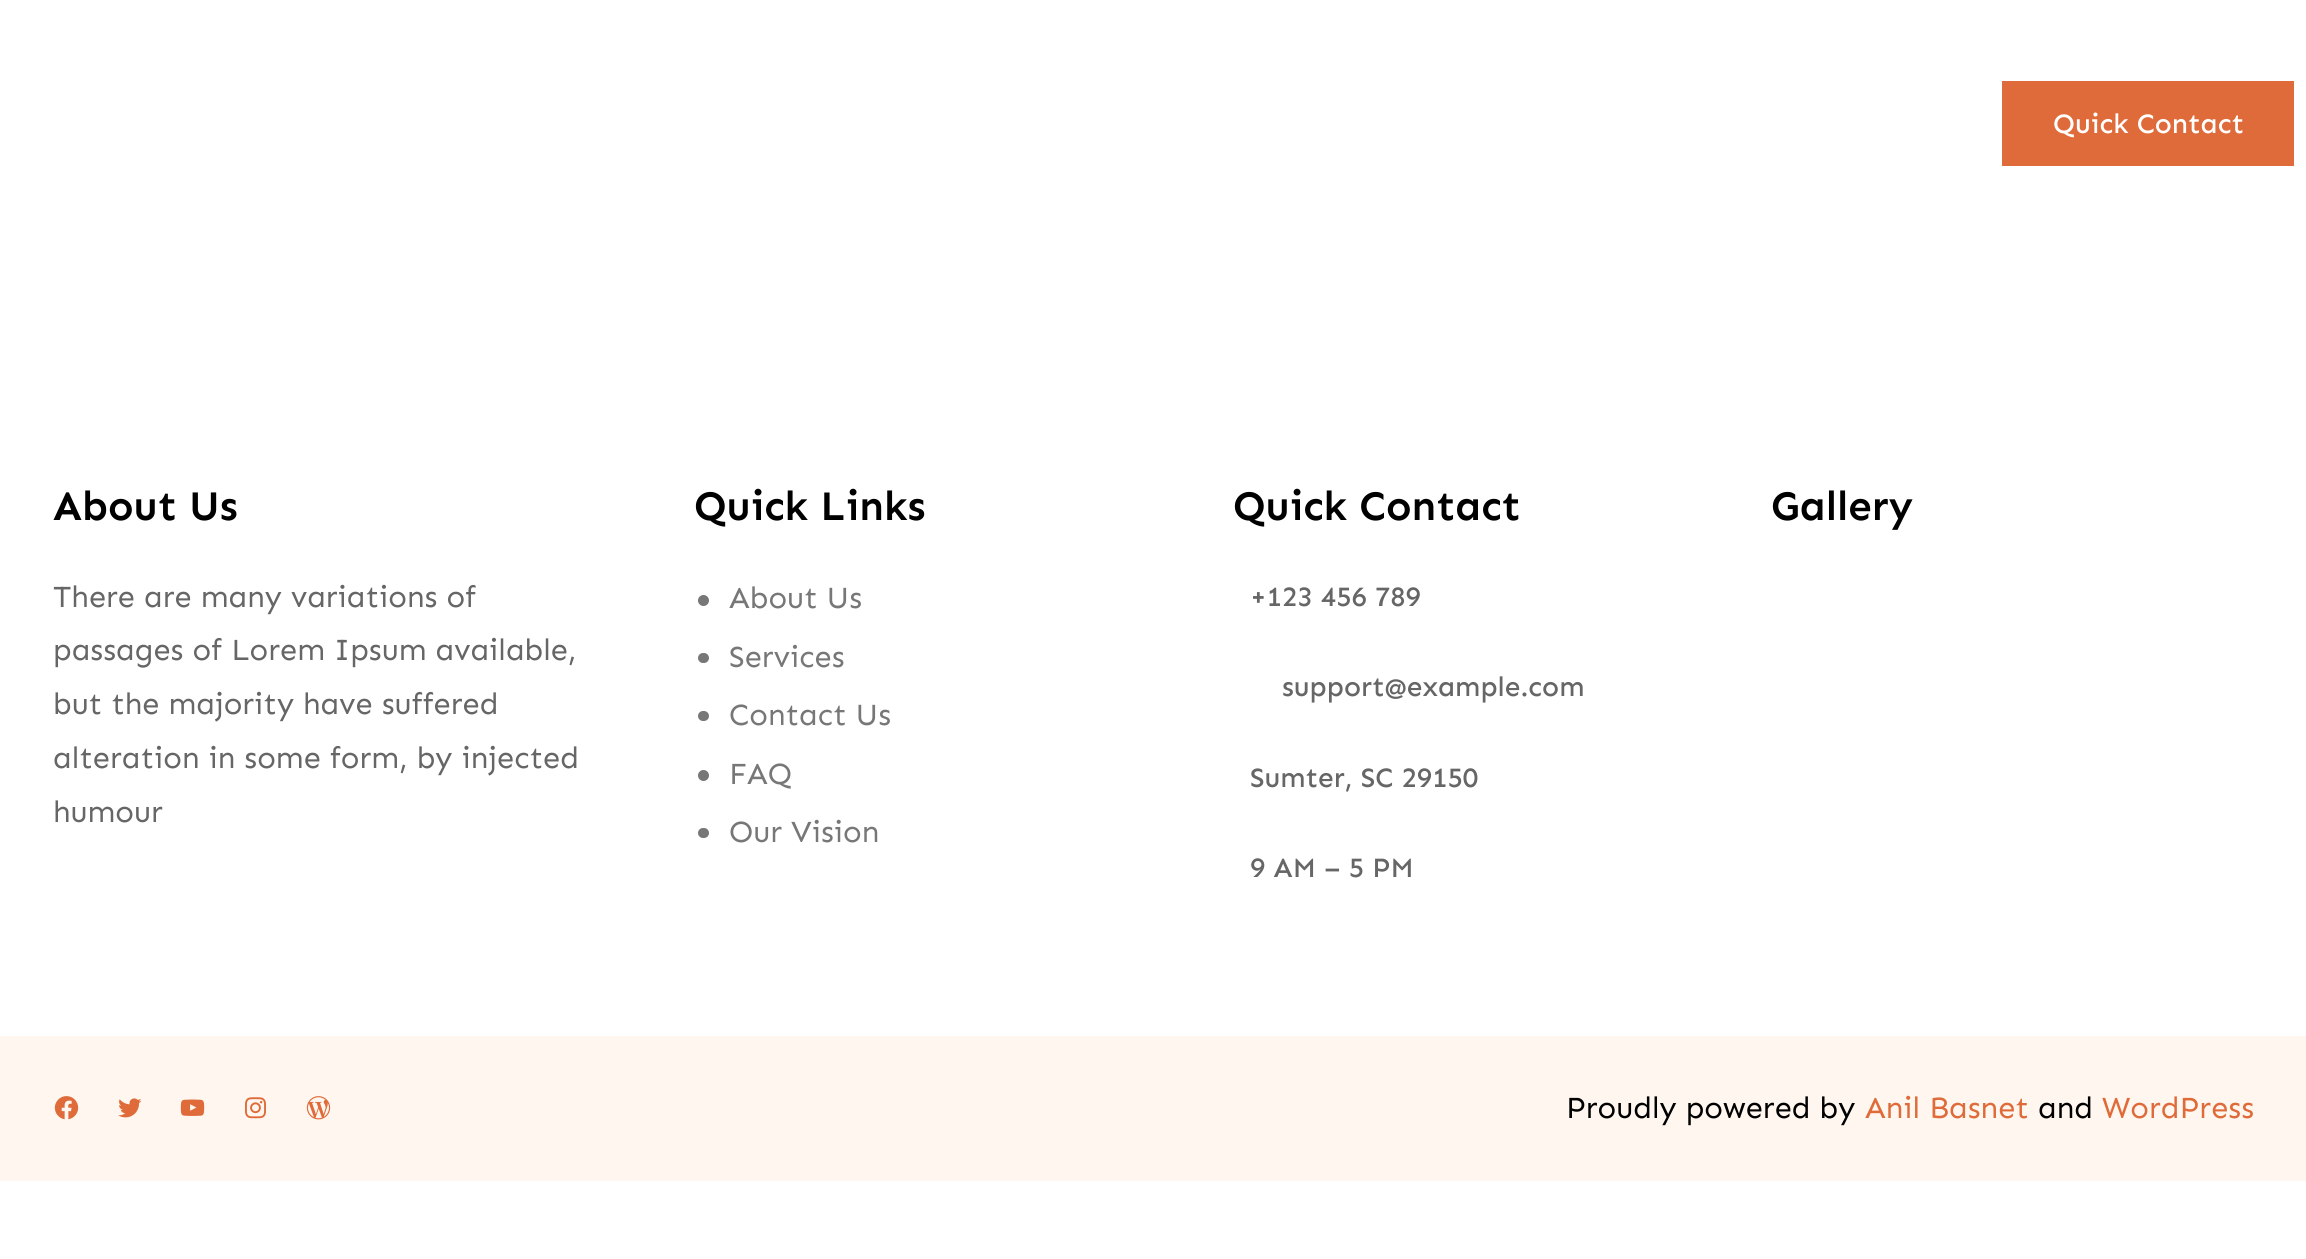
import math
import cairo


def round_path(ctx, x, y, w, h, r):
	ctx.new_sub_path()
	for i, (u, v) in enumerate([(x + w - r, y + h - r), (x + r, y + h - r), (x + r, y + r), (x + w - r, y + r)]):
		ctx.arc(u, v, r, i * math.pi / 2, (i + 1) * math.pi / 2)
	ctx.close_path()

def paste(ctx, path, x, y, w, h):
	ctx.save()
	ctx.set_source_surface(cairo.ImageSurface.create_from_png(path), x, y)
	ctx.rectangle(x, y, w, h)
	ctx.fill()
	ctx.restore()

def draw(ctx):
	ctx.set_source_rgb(1, 1, 1)
	ctx.paint()
	ctx.set_source_rgb(0.875, 0.42, 0.227)
	ctx.rectangle(2002, 81, 292, 85)
	ctx.fill()
	ctx.select_font_face('Sen Medium')
	ctx.set_font_size(28)
	ctx.set_source_rgb(1, 1, 1)
	ctx.move_to(2053, 133)
	ctx.show_text('Quick Contact')
	ctx.select_font_face('Sen SemiBold')
	ctx.set_font_size(42)
	ctx.set_source_rgb(0, 0, 0)
	ctx.move_to(53, 520)
	ctx.show_text('About Us')
	ctx.select_font_face('Sen')
	ctx.set_font_size(30.75)
	ctx.set_source_rgb(0.4, 0.4, 0.4)
	for x, y, s in [
		(53, 607, 'There are many variations of'),
		(53, 660, 'passages of Lorem Ipsum available,'),
		(53, 714, 'but the majority have suffered'),
		(53, 768, 'alteration in some form, by injected'),
		(53, 822, 'humour'),
	]:
		ctx.move_to(x, y)
		ctx.show_text(s)
	ctx.select_font_face('Sen SemiBold')
	ctx.set_font_size(42)
	ctx.set_source_rgb(0, 0, 0)
	ctx.move_to(694, 520)
	ctx.show_text('Quick Links')
	ctx.set_source_rgb(0.467, 0.467, 0.467)
	ctx.new_path()
	ctx.arc(703.5, 600.5, 5.5, 0, 2 * math.pi)
	ctx.fill()
	ctx.select_font_face('Sen')
	ctx.set_font_size(30.75)
	ctx.move_to(729, 608)
	ctx.show_text('About Us')
	round_path(ctx, 698, 653, 11, 10, 5)
	ctx.fill()
	ctx.move_to(729, 667)
	ctx.show_text('Services')
	round_path(ctx, 698, 711, 11, 10, 5)
	ctx.fill()
	ctx.move_to(729, 725)
	ctx.show_text('Contact Us')
	ctx.new_path()
	ctx.arc(703.5, 775.5, 5.5, 0, 2 * math.pi)
	ctx.fill()
	ctx.move_to(729, 784)
	ctx.show_text('FAQ')
	round_path(ctx, 698, 828, 11, 10, 5)
	ctx.fill()
	ctx.move_to(729, 842)
	ctx.show_text('Our Vision')
	ctx.select_font_face('Sen SemiBold')
	ctx.set_font_size(42)
	ctx.set_source_rgb(0, 0, 0)
	ctx.move_to(1233, 520)
	ctx.show_text('Quick Contact')
	ctx.select_font_face('Sen Medium')
	ctx.set_font_size(28)
	ctx.set_source_rgb(0.4, 0.4, 0.4)
	for x, y, s in [
		(1250, 606, '+123 456 789'),
		(1282, 696, 'support@example.com'),
		(1250, 787, 'Sumter, SC 29150'),
		(1250, 877, '9 AM – 5 PM'),
	]:
		ctx.move_to(x, y)
		ctx.show_text(s)
	ctx.select_font_face('Sen SemiBold')
	ctx.set_font_size(42)
	ctx.set_source_rgb(0, 0, 0)
	ctx.move_to(1771, 520)
	ctx.show_text('Gallery')
	ctx.set_source_rgb(1, 0.965, 0.937)
	ctx.rectangle(0, 1036, 2306, 145)
	ctx.fill()
	paste(ctx, 'media/1.png', 54, 1096, 25, 24)
	paste(ctx, 'media/2.png', 118, 1098, 24, 20)
	paste(ctx, 'media/3.png', 180, 1099, 25, 17)
	paste(ctx, 'media/4.png', 245, 1097, 21, 22)
	paste(ctx, 'media/5.png', 306, 1096, 25, 24)
	ctx.select_font_face('Sen')
	ctx.set_font_size(30.75)
	ctx.set_source_rgb(0, 0, 0)
	ctx.move_to(1566, 1118)
	ctx.show_text('Proudly powered by')
	ctx.set_source_rgb(0.875, 0.42, 0.227)
	ctx.move_to(1865, 1118)
	ctx.show_text('Anil Basnet')
	ctx.set_source_rgb(0, 0, 0)
	ctx.move_to(2038, 1118)
	ctx.show_text('and')
	ctx.set_source_rgb(0.875, 0.42, 0.227)
	ctx.move_to(2102, 1118)
	ctx.show_text('WordPress')


surface = cairo.ImageSurface(cairo.FORMAT_RGB24, 2306, 1259)
ctx = cairo.Context(surface)
options = cairo.FontOptions()
options.set_hint_metrics(cairo.HINT_METRICS_OFF)
options.set_hint_style(cairo.HINT_STYLE_NONE)
ctx.set_font_options(options)
ctx.set_miter_limit(4)
draw(ctx)
surface.write_to_png('image.png')
